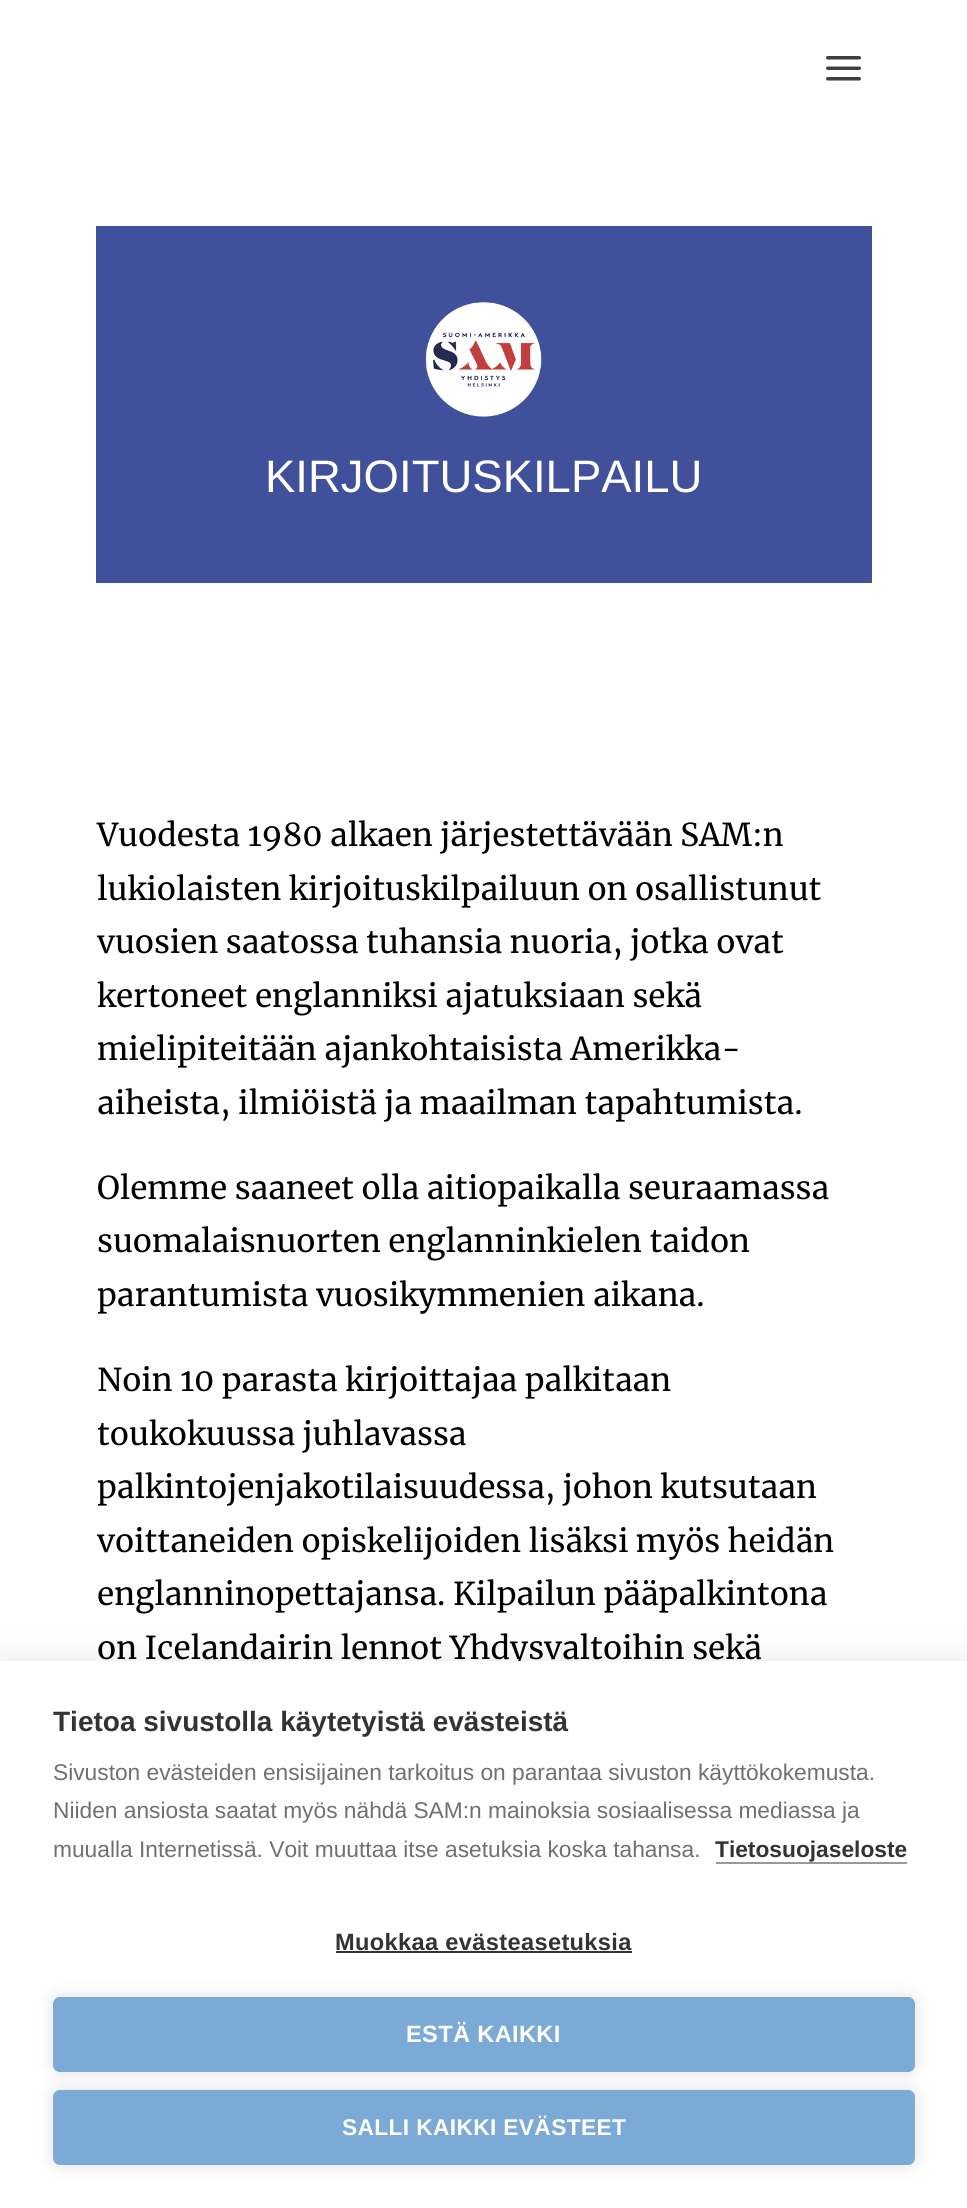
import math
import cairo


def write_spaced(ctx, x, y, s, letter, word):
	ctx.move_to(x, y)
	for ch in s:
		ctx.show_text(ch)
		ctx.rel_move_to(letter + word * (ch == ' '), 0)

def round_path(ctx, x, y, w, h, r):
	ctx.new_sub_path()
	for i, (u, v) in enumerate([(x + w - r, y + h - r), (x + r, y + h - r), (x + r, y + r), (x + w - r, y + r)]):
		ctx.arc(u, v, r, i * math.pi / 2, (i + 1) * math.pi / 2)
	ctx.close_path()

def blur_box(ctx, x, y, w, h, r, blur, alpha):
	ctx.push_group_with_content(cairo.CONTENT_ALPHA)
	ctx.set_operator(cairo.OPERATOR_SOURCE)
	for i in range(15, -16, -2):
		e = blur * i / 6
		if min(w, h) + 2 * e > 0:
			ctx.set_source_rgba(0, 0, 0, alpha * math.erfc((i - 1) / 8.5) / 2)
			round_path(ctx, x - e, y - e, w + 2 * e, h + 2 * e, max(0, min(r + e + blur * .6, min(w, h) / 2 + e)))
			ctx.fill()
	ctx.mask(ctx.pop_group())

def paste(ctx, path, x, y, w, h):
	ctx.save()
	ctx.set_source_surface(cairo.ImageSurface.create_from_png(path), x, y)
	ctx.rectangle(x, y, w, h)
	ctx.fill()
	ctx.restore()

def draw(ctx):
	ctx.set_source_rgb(1, 1, 1)
	ctx.paint()
	paste(ctx, 'media/1.png', 826, 56, 35, 25)
	ctx.set_source_rgb(0.251, 0.314, 0.608)
	ctx.rectangle(96, 226, 776, 357)
	ctx.fill()
	paste(ctx, 'media/2.png', 425, 302, 117, 115)
	ctx.select_font_face('Liberation Sans')
	ctx.set_font_size(45.5)
	ctx.set_source_rgb(1, 1, 1)
	ctx.move_to(265, 492)
	ctx.show_text('KIRJOITUSKILPAILU')
	ctx.select_font_face('Merriweather')
	ctx.set_font_size(31.5)
	ctx.set_source_rgb(0, 0, 0)
	for x, y, s in [
		(97, 846, 'Vuodesta 1980 alkaen järjestettävään SAM:n'),
		(97, 900, 'lukiolaisten kirjoituskilpailuun on osallistunut'),
		(97, 953, 'vuosien saatossa tuhansia nuoria, jotka ovat'),
		(97, 1007, 'kertoneet englanniksi ajatuksiaan sekä'),
		(97, 1060, 'mielipiteitään ajankohtaisista Amerikka-'),
		(97, 1114, 'aiheista, ilmiöistä ja maailman tapahtumista.'),
		(97, 1199, 'Olemme saaneet olla aitiopaikalla seuraamassa'),
		(97, 1252, 'suomalaisnuorten englanninkielen taidon'),
		(97, 1306, 'parantumista vuosikymmenien aikana.'),
		(97, 1391, 'Noin 10 parasta kirjoittajaa palkitaan'),
		(97, 1445, 'toukokuussa juhlavassa'),
		(97, 1498, 'palkintojenjakotilaisuudessa, johon kutsutaan'),
		(97, 1552, 'voittaneiden opiskelijoiden lisäksi myös heidän'),
		(97, 1605, 'englanninopettajansa. Kilpailun pääpalkintona'),
		(97, 1659, 'on Icelandairin lennot Yhdysvaltoihin sekä'),
	]:
		ctx.move_to(x, y)
		ctx.show_text(s)
	ctx.set_source_rgb(0, 0, 0)
	blur_box(ctx, 0, 1661, 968, 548, 0, 17.5, 0.1)
	ctx.set_source_rgb(1, 1, 1)
	ctx.rectangle(0, 1661, 967, 547)
	ctx.fill()
	ctx.save()
	ctx.rectangle(53, 1705, 862, 164)
	ctx.clip()
	ctx.select_font_face('Liberation Sans', cairo.FONT_SLANT_NORMAL, cairo.FONT_WEIGHT_BOLD)
	ctx.set_font_size(28)
	ctx.set_source_rgb(0.2, 0.2, 0.2)
	ctx.move_to(53, 1731)
	ctx.show_text('Tietoa sivustolla käytetyistä evästeistä')
	ctx.restore()
	ctx.select_font_face('Liberation Sans')
	ctx.set_font_size(22.75)
	ctx.set_source_rgb(0.439, 0.439, 0.439)
	for x, y, s in [
		(53, 1780, 'Sivuston evästeiden ensisijainen tarkoitus on parantaa sivuston käyttökokemusta.'),
		(53, 1818, 'Niiden ansiosta saatat myös nähdä SAM:n mainoksia sosiaalisessa mediassa ja'),
		(53, 1857, 'muualla Internetissä. Voit muuttaa itse asetuksia koska tahansa.'),
	]:
		ctx.move_to(x, y)
		ctx.show_text(s)
	ctx.select_font_face('Liberation Sans', cairo.FONT_SLANT_NORMAL, cairo.FONT_WEIGHT_BOLD)
	ctx.set_source_rgb(0.2, 0.2, 0.2)
	ctx.move_to(715, 1857)
	ctx.show_text('Tietosuojaseloste')
	ctx.set_source_rgb(0.6, 0.6, 0.6)
	ctx.rectangle(716, 1862, 191, 2)
	ctx.fill()
	ctx.set_font_size(23.6)
	ctx.set_source_rgb(0.2, 0.2, 0.2)
	write_spaced(ctx, 335, 1950, 'Muokkaa evästeasetuksia', 0.35, 0)
	ctx.rectangle(336, 1951, 296, 2)
	ctx.fill()
	ctx.set_source_rgb(0, 0, 0)
	blur_box(ctx, 53, 1997, 862, 75, 7, 9, 0.12)
	ctx.set_source_rgb(0.486, 0.667, 0.843)
	round_path(ctx, 53, 1997, 862, 75, 7)
	ctx.fill()
	ctx.set_source_rgb(1, 1, 1)
	write_spaced(ctx, 406, 2042, 'ESTÄ KAIKKI', 0.35, 0)
	ctx.set_source_rgb(0, 0, 0)
	blur_box(ctx, 53, 2090, 862, 75, 7, 9, 0.12)
	ctx.set_source_rgb(0.486, 0.667, 0.843)
	round_path(ctx, 53, 2090, 862, 75, 7)
	ctx.fill()
	ctx.set_font_size(22.75)
	ctx.set_source_rgb(1, 1, 1)
	write_spaced(ctx, 342, 2135, 'SALLI KAIKKI EVÄSTEET', 0.35, 0)


surface = cairo.ImageSurface(cairo.FORMAT_RGB24, 967, 2208)
ctx = cairo.Context(surface)
options = cairo.FontOptions()
options.set_hint_metrics(cairo.HINT_METRICS_OFF)
options.set_hint_style(cairo.HINT_STYLE_NONE)
ctx.set_font_options(options)
ctx.set_miter_limit(4)
draw(ctx)
surface.write_to_png('image.png')
